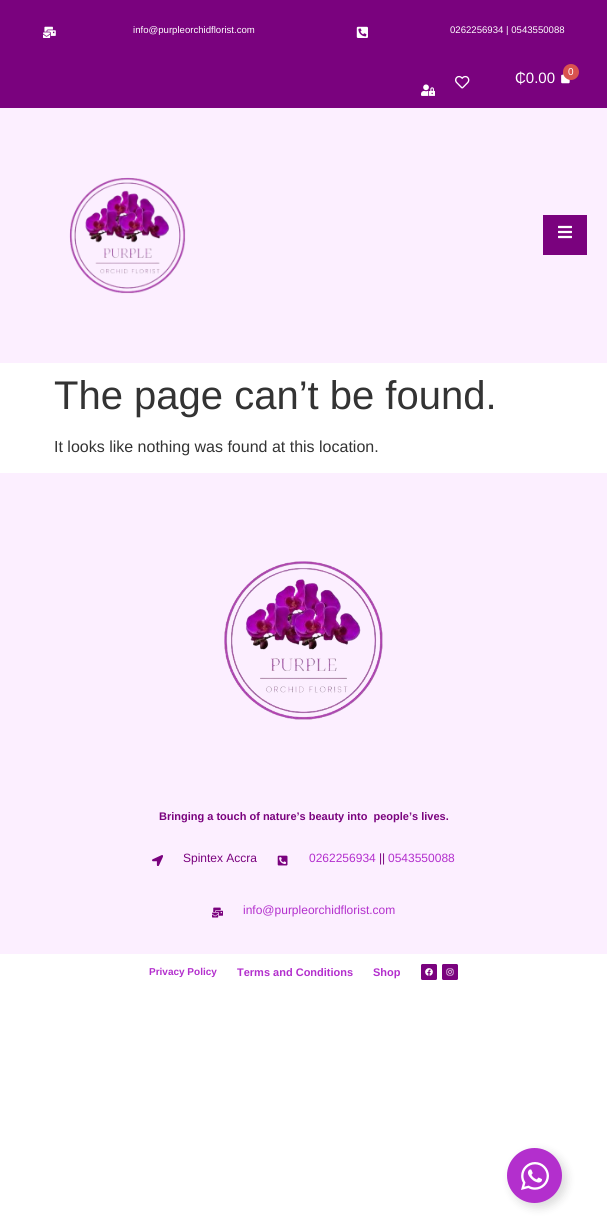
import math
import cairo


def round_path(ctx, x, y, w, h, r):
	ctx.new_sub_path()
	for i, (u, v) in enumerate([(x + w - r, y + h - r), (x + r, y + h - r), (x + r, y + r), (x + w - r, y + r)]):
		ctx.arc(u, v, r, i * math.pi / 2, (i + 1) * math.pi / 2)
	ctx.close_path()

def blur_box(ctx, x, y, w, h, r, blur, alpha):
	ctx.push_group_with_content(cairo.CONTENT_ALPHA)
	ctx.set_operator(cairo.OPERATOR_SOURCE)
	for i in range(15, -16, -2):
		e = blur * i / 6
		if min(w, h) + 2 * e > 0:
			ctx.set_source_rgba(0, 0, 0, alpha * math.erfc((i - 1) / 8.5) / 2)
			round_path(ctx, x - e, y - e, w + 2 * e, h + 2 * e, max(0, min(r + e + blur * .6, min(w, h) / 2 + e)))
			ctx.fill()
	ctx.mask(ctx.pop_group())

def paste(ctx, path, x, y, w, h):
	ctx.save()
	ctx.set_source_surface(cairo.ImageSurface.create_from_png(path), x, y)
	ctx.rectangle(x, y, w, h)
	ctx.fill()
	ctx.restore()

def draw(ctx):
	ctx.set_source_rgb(1, 1, 1)
	ctx.paint()
	ctx.set_source_rgb(0.478, 0.008, 0.494)
	ctx.rectangle(0, 0, 607, 108)
	ctx.fill()
	paste(ctx, 'media/1.png', 43, 26, 13, 12)
	ctx.select_font_face('Liberation Sans')
	ctx.set_font_size(9.6)
	ctx.set_source_rgb(1, 1, 1)
	ctx.move_to(133, 33)
	ctx.show_text('info@purpleorchidflorist.com')
	paste(ctx, 'media/2.png', 356, 26, 12, 12)
	ctx.move_to(450, 33)
	ctx.show_text('0262256934 | 0543550088')
	paste(ctx, 'media/3.png', 421, 84, 14, 12)
	paste(ctx, 'media/4.png', 455, 75, 15, 14)
	ctx.set_font_size(15)
	ctx.move_to(515, 83)
	ctx.show_text('₵0.00')
	paste(ctx, 'media/5.png', 561, 72, 9, 12)
	ctx.set_source_rgb(0.851, 0.325, 0.31)
	ctx.arc(571, 72, 8, 0, 2 * math.pi)
	ctx.fill()
	ctx.set_font_size(10)
	ctx.set_source_rgb(1, 1, 1)
	ctx.move_to(568, 75)
	ctx.show_text('0')
	ctx.set_source_rgb(0.988, 0.937, 1)
	ctx.rectangle(0, 108, 607, 255)
	ctx.fill()
	paste(ctx, 'media/6.png', 69, 177, 117, 117)
	ctx.set_source_rgb(0.478, 0.008, 0.494)
	ctx.rectangle(543, 215, 44, 40)
	ctx.fill()
	paste(ctx, 'media/7.png', 558, 225, 14, 14)
	ctx.set_font_size(40)
	ctx.set_source_rgb(0.2, 0.2, 0.2)
	ctx.move_to(54, 409)
	ctx.show_text('The page can’t be found.')
	ctx.set_font_size(16)
	ctx.move_to(54, 452)
	ctx.show_text('It looks like nothing was found at this location.')
	ctx.set_source_rgb(0.988, 0.937, 1)
	ctx.rectangle(0, 473, 607, 481)
	ctx.fill()
	paste(ctx, 'media/8.png', 224, 561, 159, 159)
	ctx.select_font_face('Liberation Sans', cairo.FONT_SLANT_NORMAL, cairo.FONT_WEIGHT_BOLD)
	ctx.set_font_size(11)
	ctx.set_source_rgb(0.478, 0.008, 0.494)
	ctx.move_to(159, 820)
	ctx.show_text('Bringing a touch of nature’s beauty into  people’s lives.')
	paste(ctx, 'media/9.png', 152, 855, 11, 11)
	ctx.select_font_face('Liberation Sans')
	ctx.set_font_size(12)
	ctx.move_to(183, 862)
	ctx.show_text('Spintex Accra')
	paste(ctx, 'media/10.png', 277, 855, 11, 11)
	ctx.set_source_rgb(0.702, 0.184, 0.804)
	ctx.move_to(309, 862)
	ctx.show_text('0262256934')
	ctx.set_source_rgb(0.478, 0.008, 0.494)
	ctx.move_to(379, 862)
	ctx.show_text('||')
	ctx.set_source_rgb(0.702, 0.184, 0.804)
	ctx.move_to(388, 862)
	ctx.show_text('0543550088')
	paste(ctx, 'media/11.png', 212, 907, 11, 11)
	ctx.move_to(243, 914)
	ctx.show_text('info@purpleorchidflorist.com')
	ctx.select_font_face('Liberation Sans', cairo.FONT_SLANT_NORMAL, cairo.FONT_WEIGHT_BOLD)
	ctx.set_font_size(10)
	ctx.move_to(149, 975)
	ctx.show_text('Privacy Policy')
	ctx.set_font_size(11)
	ctx.move_to(237, 976)
	ctx.show_text('Terms and Conditions')
	ctx.move_to(373, 976)
	ctx.show_text('Shop')
	ctx.set_source_rgb(0.478, 0.008, 0.494)
	round_path(ctx, 421, 964, 16, 16, 1.5)
	ctx.fill()
	paste(ctx, 'media/12.png', 425, 968, 8, 8)
	round_path(ctx, 442, 964, 16, 16, 1.5)
	ctx.fill()
	paste(ctx, 'media/13.png', 446, 968, 8, 8)
	ctx.set_source_rgb(0, 0, 0)
	blur_box(ctx, 511, 1152, 55, 55, 27.5, 5, 0.15)
	ctx.set_source_rgb(0.702, 0.184, 0.804)
	ctx.arc(534.5, 1175.5, 27.5, 0, 2 * math.pi)
	ctx.fill()
	paste(ctx, 'media/14.png', 521, 1162, 28, 28)


surface = cairo.ImageSurface(cairo.FORMAT_RGB24, 607, 1228)
ctx = cairo.Context(surface)
options = cairo.FontOptions()
options.set_hint_metrics(cairo.HINT_METRICS_OFF)
options.set_hint_style(cairo.HINT_STYLE_NONE)
ctx.set_font_options(options)
ctx.set_miter_limit(4)
draw(ctx)
surface.write_to_png('image.png')
